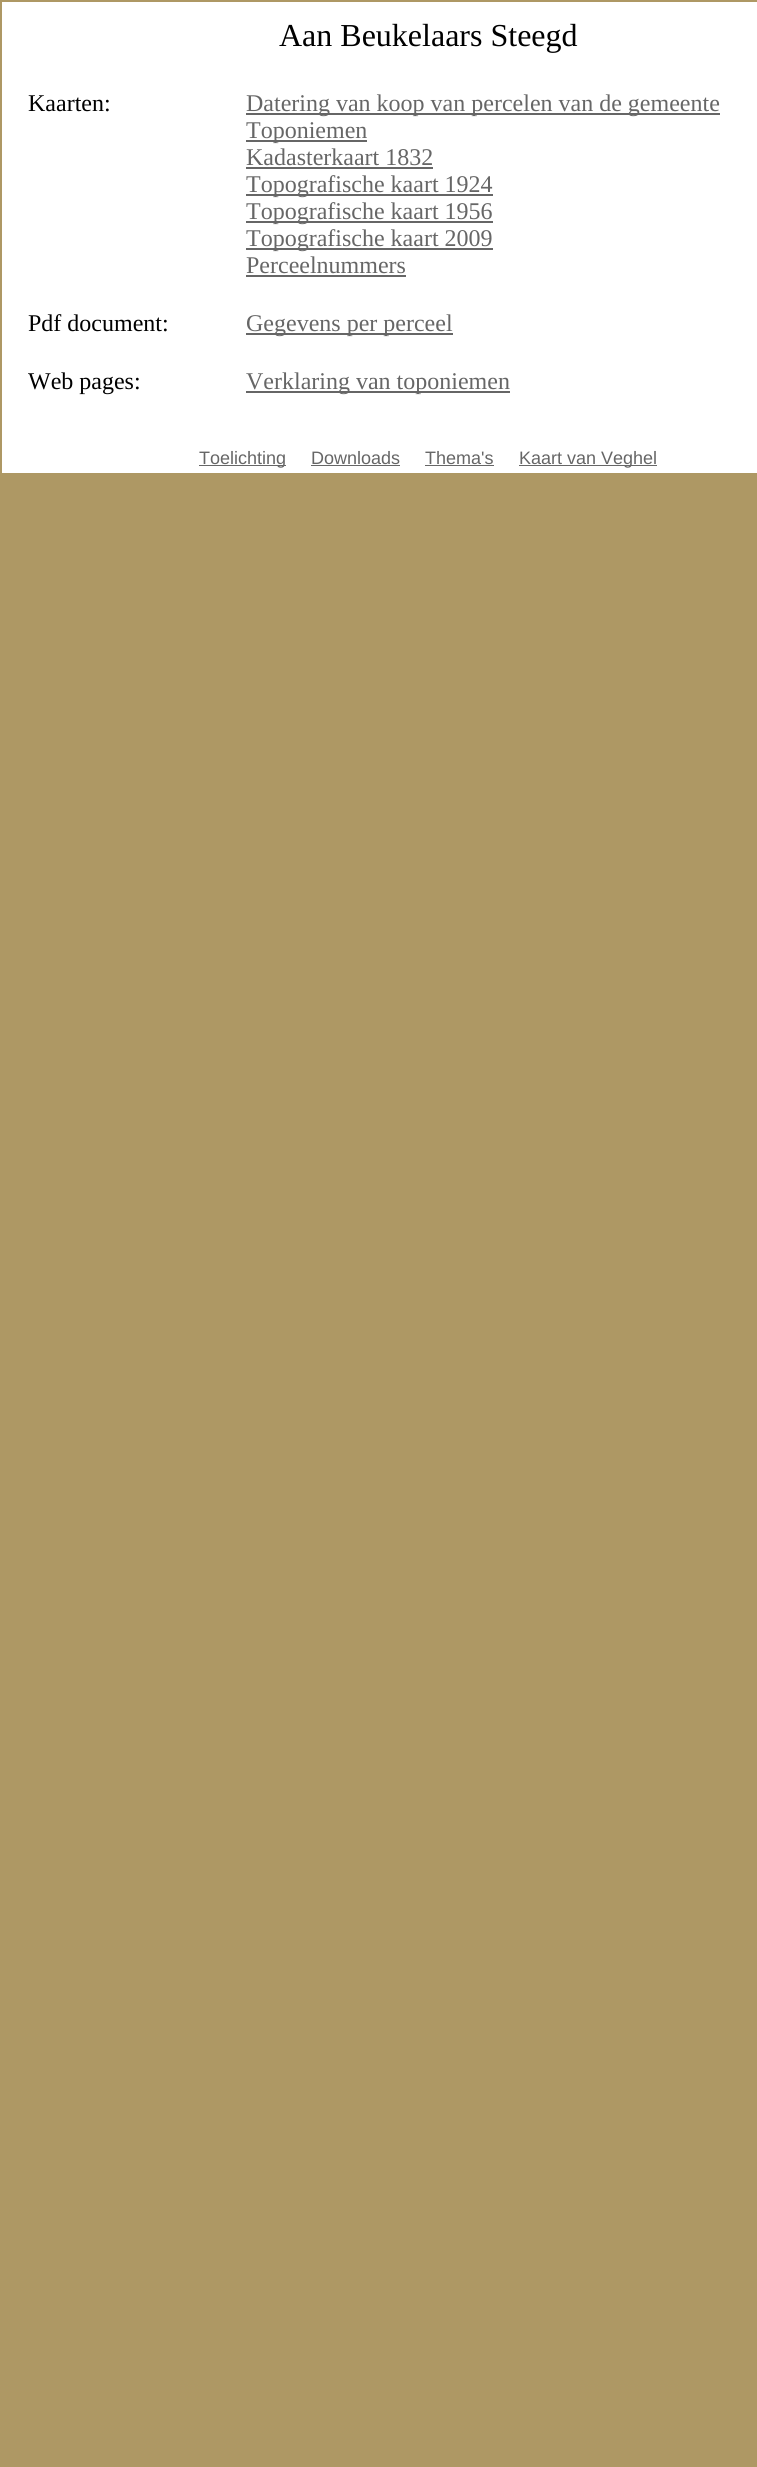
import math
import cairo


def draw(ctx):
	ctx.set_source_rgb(0.682, 0.596, 0.392)
	ctx.paint()
	ctx.set_source_rgb(1, 1, 1)
	ctx.rectangle(2, 2, 755, 471)
	ctx.fill()
	ctx.select_font_face('Liberation Serif')
	ctx.set_font_size(32)
	ctx.set_source_rgb(0, 0, 0)
	ctx.move_to(279, 46)
	ctx.show_text('Aan Beukelaars Steegd')
	ctx.set_font_size(24)
	ctx.move_to(28, 111)
	ctx.show_text('Kaarten:')
	ctx.set_source_rgb(0.4, 0.4, 0.4)
	ctx.rectangle(246, 113, 474, 2)
	ctx.fill()
	ctx.move_to(246, 111)
	ctx.show_text('Datering van koop van percelen van de gemeente')
	ctx.rectangle(246, 140, 121, 2)
	ctx.fill()
	ctx.move_to(246, 138)
	ctx.show_text('Toponiemen')
	ctx.move_to(246, 165)
	ctx.show_text('Kadasterkaart 1832')
	ctx.rectangle(246, 167, 187, 2)
	ctx.fill()
	ctx.rectangle(246, 194, 247, 2)
	ctx.fill()
	ctx.move_to(246, 192)
	ctx.show_text('Topografische kaart 1924')
	ctx.rectangle(246, 221, 247, 2)
	ctx.fill()
	ctx.move_to(246, 219)
	ctx.show_text('Topografische kaart 1956')
	ctx.rectangle(246, 248, 247, 2)
	ctx.fill()
	ctx.move_to(246, 246)
	ctx.show_text('Topografische kaart 2009')
	ctx.move_to(246, 273)
	ctx.show_text('Perceelnummers')
	ctx.rectangle(246, 275, 160, 2)
	ctx.fill()
	ctx.set_source_rgb(0, 0, 0)
	ctx.move_to(28, 331)
	ctx.show_text('Pdf document:')
	ctx.set_source_rgb(0.4, 0.4, 0.4)
	ctx.rectangle(246, 333, 207, 2)
	ctx.fill()
	ctx.move_to(246, 331)
	ctx.show_text('Gegevens per perceel')
	ctx.set_source_rgb(0, 0, 0)
	ctx.move_to(28, 389)
	ctx.show_text('Web pages:')
	ctx.set_source_rgb(0.4, 0.4, 0.4)
	ctx.rectangle(246, 391, 264, 2)
	ctx.fill()
	ctx.move_to(246, 389)
	ctx.show_text('Verklaring van toponiemen')
	ctx.rectangle(199, 465, 87, 1)
	ctx.fill()
	ctx.select_font_face('Liberation Sans')
	ctx.set_font_size(18)
	ctx.move_to(199, 464)
	ctx.show_text('Toelichting')
	ctx.move_to(311, 464)
	ctx.show_text('Downloads')
	ctx.rectangle(311, 465, 89, 1)
	ctx.fill()
	ctx.move_to(425, 464)
	ctx.show_text('Thema\'s')
	ctx.rectangle(425, 465, 69, 1)
	ctx.fill()
	ctx.rectangle(519, 465, 138, 1)
	ctx.fill()
	ctx.move_to(519, 464)
	ctx.show_text('Kaart van Veghel')


surface = cairo.ImageSurface(cairo.FORMAT_RGB24, 757, 2467)
ctx = cairo.Context(surface)
options = cairo.FontOptions()
options.set_hint_metrics(cairo.HINT_METRICS_OFF)
options.set_hint_style(cairo.HINT_STYLE_NONE)
ctx.set_font_options(options)
ctx.set_miter_limit(4)
draw(ctx)
surface.write_to_png('image.png')
